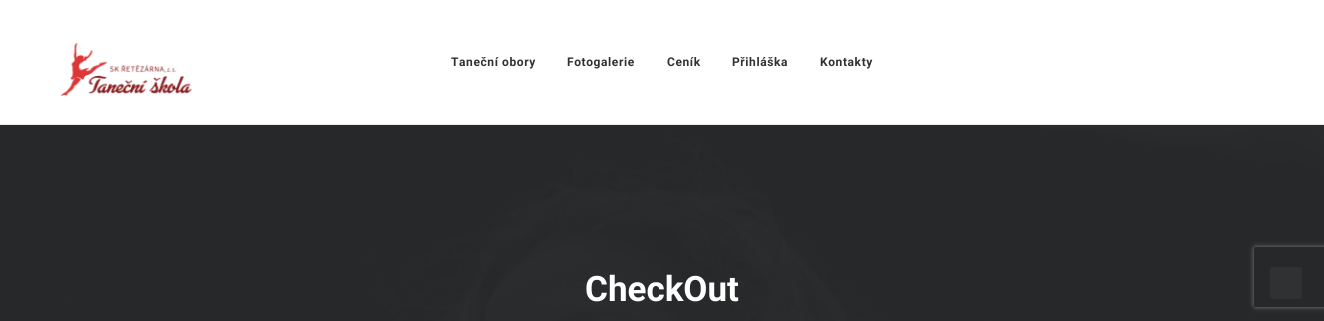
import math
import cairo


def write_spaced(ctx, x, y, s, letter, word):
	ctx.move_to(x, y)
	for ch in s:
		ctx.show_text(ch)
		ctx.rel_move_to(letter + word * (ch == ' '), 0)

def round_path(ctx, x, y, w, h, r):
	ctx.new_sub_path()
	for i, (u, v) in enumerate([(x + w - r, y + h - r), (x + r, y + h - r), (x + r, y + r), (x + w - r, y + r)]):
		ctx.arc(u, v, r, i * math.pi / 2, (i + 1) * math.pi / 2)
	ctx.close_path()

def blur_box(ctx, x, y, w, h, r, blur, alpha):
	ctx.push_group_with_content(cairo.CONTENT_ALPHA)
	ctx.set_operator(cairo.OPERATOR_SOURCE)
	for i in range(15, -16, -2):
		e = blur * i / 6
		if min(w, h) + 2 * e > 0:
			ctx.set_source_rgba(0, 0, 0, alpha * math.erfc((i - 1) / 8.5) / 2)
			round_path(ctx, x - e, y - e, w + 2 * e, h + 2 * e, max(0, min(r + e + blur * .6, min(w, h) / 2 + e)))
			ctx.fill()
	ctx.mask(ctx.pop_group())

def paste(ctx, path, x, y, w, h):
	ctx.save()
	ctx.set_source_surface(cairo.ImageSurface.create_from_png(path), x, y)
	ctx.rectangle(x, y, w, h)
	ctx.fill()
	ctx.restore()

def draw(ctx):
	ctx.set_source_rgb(1, 1, 1)
	ctx.paint()
	ctx.set_source_rgb(0.918, 0.918, 0.918)
	ctx.rectangle(0, 124, 1324, 1)
	ctx.fill()
	paste(ctx, 'media/1.png', 61, 42, 132, 55)
	ctx.select_font_face('Roboto', cairo.FONT_SLANT_NORMAL, cairo.FONT_WEIGHT_BOLD)
	ctx.set_font_size(12)
	ctx.set_source_rgb(0.188, 0.192, 0.2)
	for x, y, s in [
		(451, 66, 'Taneční obory'),
		(567, 66, 'Fotogalerie'),
		(667, 66, 'Ceník'),
		(732, 66, 'Přihláška'),
		(820, 66, 'Kontakty'),
	]:
		write_spaced(ctx, x, y, s, 0.6, 0)
	paste(ctx, 'media/2.png', 0, 125, 1324, 196)
	ctx.set_font_size(35)
	ctx.set_source_rgb(1, 1, 1)
	ctx.move_to(585, 301)
	ctx.show_text('CheckOut')
	ctx.save()
	ctx.set_fill_rule(cairo.FILL_RULE_EVEN_ODD)
	ctx.new_path()
	ctx.move_to(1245, 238)
	ctx.line_to(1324, 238)
	ctx.line_to(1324, 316)
	ctx.line_to(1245, 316)
	ctx.close_path()
	ctx.move_to(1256, 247)
	ctx.line_to(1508, 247)
	ctx.curve_to(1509, 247, 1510, 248, 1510, 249)
	ctx.line_to(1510, 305)
	ctx.curve_to(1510, 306, 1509, 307, 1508, 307)
	ctx.line_to(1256, 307)
	ctx.curve_to(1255, 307, 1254, 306, 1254, 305)
	ctx.line_to(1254, 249)
	ctx.curve_to(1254, 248, 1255, 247, 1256, 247)
	ctx.close_path()
	ctx.clip()
	ctx.set_source_rgb(0.502, 0.502, 0.502)
	blur_box(ctx, 1254, 247, 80, 60, 2, 2.5, 1)
	ctx.restore()
	ctx.set_source_rgb(0.188, 0.192, 0.2)
	round_path(ctx, 1270, 267, 32, 32, 2)
	ctx.fill()


surface = cairo.ImageSurface(cairo.FORMAT_RGB24, 1324, 321)
ctx = cairo.Context(surface)
options = cairo.FontOptions()
options.set_hint_metrics(cairo.HINT_METRICS_OFF)
options.set_hint_style(cairo.HINT_STYLE_NONE)
ctx.set_font_options(options)
ctx.set_miter_limit(4)
draw(ctx)
surface.write_to_png('image.png')
